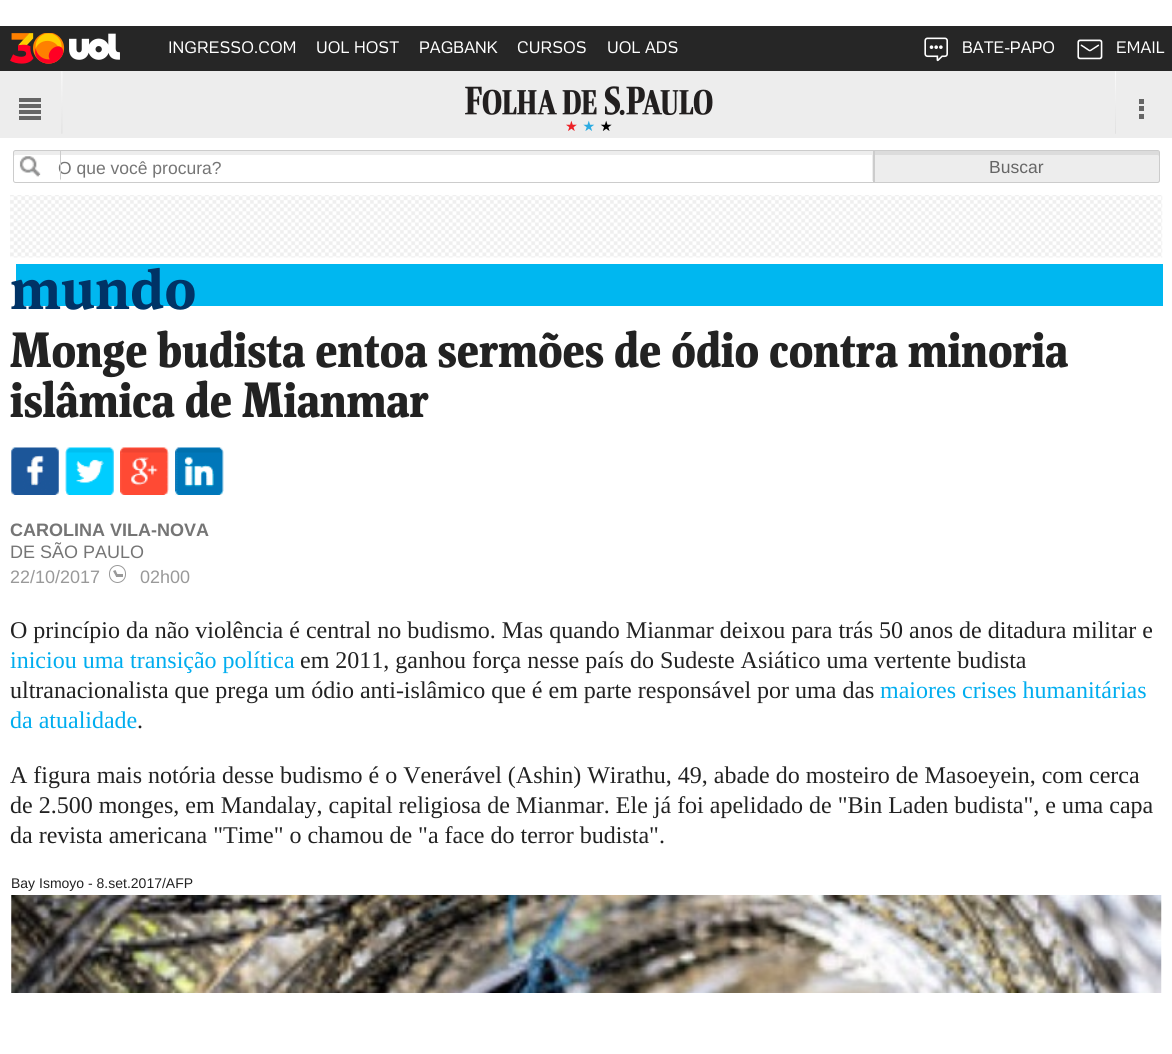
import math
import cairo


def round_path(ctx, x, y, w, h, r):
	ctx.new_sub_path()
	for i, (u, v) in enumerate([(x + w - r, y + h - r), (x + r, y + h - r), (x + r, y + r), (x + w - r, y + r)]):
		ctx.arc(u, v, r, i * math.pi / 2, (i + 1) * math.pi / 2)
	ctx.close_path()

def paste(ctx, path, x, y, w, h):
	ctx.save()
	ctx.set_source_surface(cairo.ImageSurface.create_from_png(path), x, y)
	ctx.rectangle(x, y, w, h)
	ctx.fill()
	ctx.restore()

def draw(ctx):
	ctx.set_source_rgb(1, 1, 1)
	ctx.paint()
	ctx.set_source_rgb(0.149, 0.149, 0.149)
	ctx.rectangle(0, 26, 1172, 45)
	ctx.fill()
	paste(ctx, 'media/1.png', 10, 33, 110, 31)
	ctx.select_font_face('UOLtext')
	ctx.set_font_size(16.25)
	ctx.set_source_rgb(1, 1, 1)
	for x, y, s in [
		(168, 53, 'INGRESSO.COM'),
		(316, 53, 'UOL HOST'),
		(419, 53, 'PAGBANK'),
		(517, 53, 'CURSOS'),
		(607, 53, 'UOL ADS'),
	]:
		ctx.move_to(x, y)
		ctx.show_text(s)
	paste(ctx, 'media/2.png', 924, 37, 24, 25)
	ctx.move_to(962, 53)
	ctx.show_text('BATE-PAPO')
	paste(ctx, 'media/3.png', 1077, 39, 26, 21)
	ctx.move_to(1116, 53)
	ctx.show_text('EMAIL')
	ctx.set_source_rgb(0.929, 0.929, 0.929)
	ctx.rectangle(0, 71, 1172, 67)
	ctx.fill()
	paste(ctx, 'media/4.png', 61, 71, 2, 63)
	ctx.set_source_rgb(0.4, 0.4, 0.4)
	ctx.rectangle(19, 98, 22, 4)
	ctx.rectangle(19, 104, 22, 4)
	ctx.rectangle(19, 110, 22, 4)
	ctx.rectangle(19, 116, 22, 4)
	ctx.fill()
	paste(ctx, 'media/5.png', 465, 86, 248, 45)
	paste(ctx, 'media/6.png', 1115, 71, 1, 63)
	ctx.rectangle(1139, 99, 5, 5)
	ctx.rectangle(1139, 106, 5, 5)
	ctx.rectangle(1139, 114, 5, 5)
	ctx.fill()
	ctx.set_source_rgb(0.929, 0.929, 0.929)
	ctx.new_path()
	ctx.move_to(15, 155)
	ctx.line_to(872, 155)
	ctx.line_to(872, 181)
	ctx.line_to(873, 181)
	ctx.line_to(873, 151)
	ctx.line_to(14, 151)
	ctx.curve_to(13, 152, 14, 155, 14, 156)
	ctx.close_path()
	ctx.fill()
	ctx.new_path()
	ctx.move_to(15.5, 150.5)
	ctx.line_to(873.5, 150.5)
	ctx.line_to(873.5, 182.5)
	ctx.line_to(15.5, 182.5)
	ctx.curve_to(14.5, 182.5, 13.5, 181.5, 13.5, 180.5)
	ctx.line_to(13.5, 152.5)
	ctx.curve_to(13.5, 151.5, 14.5, 150.5, 15.5, 150.5)
	ctx.close_path()
	ctx.set_source_rgb(0.8, 0.8, 0.8)
	ctx.set_line_width(1)
	ctx.stroke()
	paste(ctx, 'media/7.png', 19, 156, 22, 21)
	ctx.select_font_face('Liberation Sans')
	ctx.set_font_size(17.5)
	ctx.set_source_rgb(0.459, 0.459, 0.459)
	ctx.move_to(58, 174)
	ctx.show_text('O que você procura?')
	ctx.set_source_rgb(0.8, 0.8, 0.8)
	ctx.new_path()
	ctx.move_to(61, 150)
	ctx.line_to(61, 181)
	ctx.line_to(60, 179)
	ctx.line_to(60, 150)
	ctx.close_path()
	ctx.fill()
	ctx.set_source_rgb(1, 1, 1)
	ctx.new_path()
	ctx.move_to(61, 181)
	ctx.line_to(19, 181)
	ctx.line_to(19, 179)
	ctx.line_to(60, 179)
	ctx.close_path()
	ctx.fill()
	ctx.set_source_rgb(0.929, 0.929, 0.929)
	ctx.new_path()
	ctx.move_to(874, 150)
	ctx.line_to(1157.5, 150)
	ctx.curve_to(1159, 150, 1160, 151, 1160, 152.5)
	ctx.line_to(1160, 180.5)
	ctx.curve_to(1160, 182, 1159, 183, 1157.5, 183)
	ctx.line_to(874, 183)
	ctx.close_path()
	ctx.fill()
	ctx.set_source_rgb(0.863, 0.863, 0.863)
	ctx.new_path()
	ctx.move_to(875, 155)
	ctx.line_to(1158, 155)
	ctx.line_to(1159, 156)
	ctx.curve_to(1159, 155, 1160, 152, 1158, 151)
	ctx.line_to(875, 151)
	ctx.close_path()
	ctx.fill()
	ctx.new_path()
	ctx.move_to(874.5, 150.5)
	ctx.line_to(1157.5, 150.5)
	ctx.curve_to(1158.5, 150.5, 1159.5, 151.5, 1159.5, 152.5)
	ctx.line_to(1159.5, 180.5)
	ctx.curve_to(1159.5, 181.5, 1158.5, 182.5, 1157.5, 182.5)
	ctx.line_to(874.5, 182.5)
	ctx.close_path()
	ctx.set_source_rgb(0.8, 0.8, 0.8)
	ctx.stroke()
	ctx.set_source_rgb(0.4, 0.4, 0.4)
	ctx.move_to(989, 173)
	ctx.show_text('Buscar')
	paste(ctx, 'media/8.png', 10, 195, 1153, 63)
	ctx.set_source_rgb(0, 0.718, 0.941)
	ctx.rectangle(16, 264, 1147, 42)
	ctx.fill()
	ctx.select_font_face('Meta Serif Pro', cairo.FONT_SLANT_NORMAL, cairo.FONT_WEIGHT_BOLD)
	ctx.set_font_size(56)
	ctx.set_source_rgb(0, 0.2, 0.4)
	ctx.move_to(10, 309)
	ctx.show_text('mundo')
	ctx.select_font_face('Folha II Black')
	ctx.set_font_size(50)
	ctx.set_source_rgb(0.133, 0.133, 0.133)
	ctx.move_to(10, 367)
	ctx.show_text('Monge budista entoa sermões de ódio contra minoria')
	ctx.move_to(10, 417)
	ctx.show_text('islâmica de Mianmar')
	paste(ctx, 'media/9.png', 11, 447, 48, 48)
	paste(ctx, 'media/10.png', 65, 447, 49, 48)
	paste(ctx, 'media/11.png', 120, 447, 49, 48)
	paste(ctx, 'media/12.png', 175, 447, 49, 48)
	ctx.select_font_face('Liberation Sans', cairo.FONT_SLANT_NORMAL, cairo.FONT_WEIGHT_BOLD)
	ctx.set_font_size(18)
	ctx.set_source_rgb(0.459, 0.459, 0.459)
	ctx.move_to(10, 536)
	ctx.show_text('CAROLINA VILA-NOVA')
	ctx.select_font_face('Liberation Sans')
	ctx.move_to(10, 558)
	ctx.show_text('DE SÃO PAULO')
	ctx.set_source_rgb(0.6, 0.6, 0.6)
	ctx.move_to(10, 583)
	ctx.show_text('22/10/2017')
	round_path(ctx, 109.5, 565.5, 16, 17, 8)
	ctx.stroke()
	ctx.new_path()
	ctx.move_to(115.5, 570)
	ctx.line_to(118, 575.5)
	ctx.line_to(116, 576.5)
	ctx.line_to(113, 571)
	ctx.close_path()
	ctx.fill()
	ctx.rectangle(116, 574, 7, 3)
	ctx.fill()
	ctx.move_to(140, 583)
	ctx.show_text('02h00')
	ctx.select_font_face('Liberation Serif')
	ctx.set_font_size(24)
	ctx.set_source_rgb(0.133, 0.133, 0.133)
	ctx.move_to(10, 638)
	ctx.show_text('O princípio da não violência é central no budismo. Mas quando Mianmar deixou para trás 50 anos de ditadura militar e')
	ctx.set_source_rgb(0, 0.678, 0.937)
	ctx.move_to(10, 668)
	ctx.show_text('iniciou uma transição política')
	ctx.set_source_rgb(0.133, 0.133, 0.133)
	ctx.move_to(300, 668)
	ctx.show_text('em 2011, ganhou força nesse país do Sudeste Asiático uma vertente budista')
	ctx.move_to(10, 698)
	ctx.show_text('ultranacionalista que prega um ódio anti-islâmico que é em parte responsável por uma das')
	ctx.set_source_rgb(0, 0.678, 0.937)
	ctx.move_to(880, 698)
	ctx.show_text('maiores crises humanitárias')
	ctx.move_to(10, 728)
	ctx.show_text('da atualidade')
	ctx.set_source_rgb(0.133, 0.133, 0.133)
	for x, y, s in [
		(137, 728, '.'),
		(10, 783, 'A figura mais notória desse budismo é o Venerável (Ashin) Wirathu, 49, abade do mosteiro de Masoeyein, com cerca'),
		(10, 813, 'de 2.500 monges, em Mandalay, capital religiosa de Mianmar. Ele já foi apelidado de "Bin Laden budista", e uma capa'),
		(10, 843, 'da revista americana "Time" o chamou de "a face do terror budista".'),
	]:
		ctx.move_to(x, y)
		ctx.show_text(s)
	ctx.select_font_face('Liberation Sans')
	ctx.set_font_size(14)
	ctx.move_to(11, 888)
	ctx.show_text('Bay Ismoyo - 8.set.2017/AFP')
	paste(ctx, 'media/13.png', 11, 895, 1151, 98)


surface = cairo.ImageSurface(cairo.FORMAT_RGB24, 1172, 1054)
ctx = cairo.Context(surface)
options = cairo.FontOptions()
options.set_hint_metrics(cairo.HINT_METRICS_OFF)
options.set_hint_style(cairo.HINT_STYLE_NONE)
ctx.set_font_options(options)
ctx.set_miter_limit(4)
draw(ctx)
surface.write_to_png('image.png')
